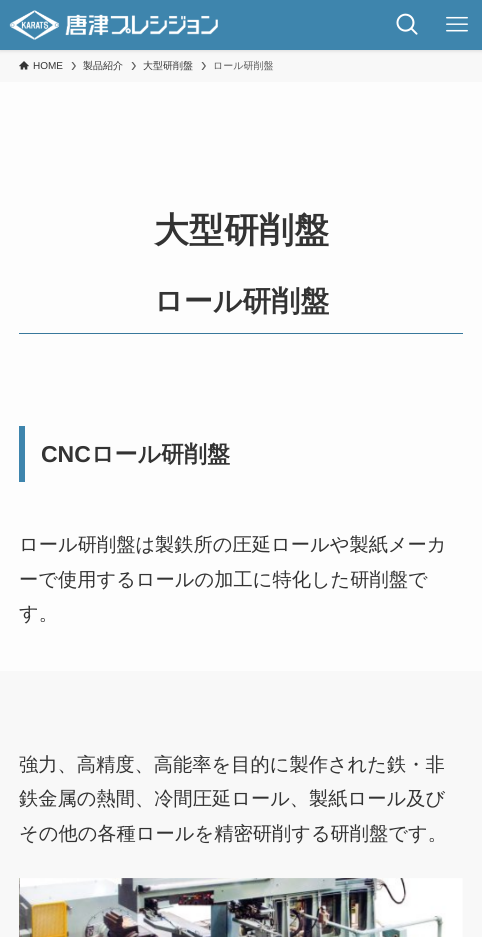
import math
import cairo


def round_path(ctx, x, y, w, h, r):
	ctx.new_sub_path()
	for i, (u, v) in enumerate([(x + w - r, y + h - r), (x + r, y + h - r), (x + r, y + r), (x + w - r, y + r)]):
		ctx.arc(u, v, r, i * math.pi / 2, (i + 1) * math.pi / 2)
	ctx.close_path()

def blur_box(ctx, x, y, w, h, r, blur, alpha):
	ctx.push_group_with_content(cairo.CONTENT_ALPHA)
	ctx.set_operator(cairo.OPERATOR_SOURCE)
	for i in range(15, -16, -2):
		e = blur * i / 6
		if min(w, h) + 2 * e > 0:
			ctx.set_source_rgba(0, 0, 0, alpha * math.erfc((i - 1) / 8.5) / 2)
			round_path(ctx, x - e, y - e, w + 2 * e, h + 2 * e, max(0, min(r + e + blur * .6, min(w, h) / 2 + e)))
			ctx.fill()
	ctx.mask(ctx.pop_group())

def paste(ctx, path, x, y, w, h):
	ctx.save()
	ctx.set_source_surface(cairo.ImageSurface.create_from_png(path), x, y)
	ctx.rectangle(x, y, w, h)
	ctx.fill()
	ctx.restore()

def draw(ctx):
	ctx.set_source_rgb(0.992, 0.992, 0.992)
	ctx.paint()
	ctx.set_source_rgb(0.969, 0.969, 0.969)
	ctx.rectangle(0, 50, 482, 32)
	ctx.fill()
	ctx.set_source_rgb(0, 0, 0)
	blur_box(ctx, 0, 1, 482, 50, 0, 2, 0.12)
	ctx.set_source_rgb(0.243, 0.522, 0.678)
	ctx.rectangle(0, 0, 482, 50)
	ctx.fill()
	paste(ctx, 'media/1.png', 9, 10, 209, 30)
	paste(ctx, 'media/2.png', 396, 13, 22, 22)
	paste(ctx, 'media/3.png', 446, 16, 22, 16)
	paste(ctx, 'media/4.png', 19, 61, 10, 9)
	ctx.select_font_face('Liberation Sans')
	ctx.set_font_size(10)
	ctx.set_source_rgb(0.2, 0.2, 0.2)
	ctx.move_to(33, 69)
	ctx.show_text('HOME')
	ctx.set_source_rgb(0.353, 0.353, 0.353)
	ctx.new_path()
	ctx.move_to(73, 62)
	ctx.line_to(71.5, 62)
	ctx.line_to(74.5, 66)
	ctx.line_to(71.5, 70)
	ctx.line_to(73, 70)
	ctx.line_to(76, 66)
	ctx.close_path()
	ctx.fill()
	ctx.select_font_face('WenQuanYi Zen Hei Medium')
	ctx.set_source_rgb(0.2, 0.2, 0.2)
	ctx.move_to(83, 69)
	ctx.show_text('製品紹介')
	ctx.set_source_rgb(0.353, 0.353, 0.353)
	ctx.new_path()
	ctx.move_to(133, 62)
	ctx.line_to(131.5, 62)
	ctx.line_to(134.5, 66)
	ctx.line_to(131.5, 70)
	ctx.line_to(133, 70)
	ctx.line_to(136, 66)
	ctx.close_path()
	ctx.fill()
	ctx.set_source_rgb(0.2, 0.2, 0.2)
	ctx.move_to(143, 69)
	ctx.show_text('大型研削盤')
	ctx.set_source_rgb(0.353, 0.353, 0.353)
	ctx.new_path()
	ctx.move_to(203, 62)
	ctx.line_to(201.5, 62)
	ctx.line_to(204.5, 66)
	ctx.line_to(201.5, 70)
	ctx.line_to(203, 70)
	ctx.line_to(206, 66)
	ctx.close_path()
	ctx.fill()
	ctx.move_to(213, 69)
	ctx.show_text('ロール研削盤')
	ctx.select_font_face('WenQuanYi Zen Hei', cairo.FONT_SLANT_NORMAL, cairo.FONT_WEIGHT_BOLD)
	ctx.set_font_size(35)
	ctx.set_source_rgb(0.2, 0.2, 0.2)
	ctx.move_to(154, 242)
	ctx.show_text('大型研削盤')
	ctx.set_font_size(29)
	ctx.move_to(154, 311)
	ctx.show_text('ロール研削盤')
	ctx.set_source_rgb(0.22, 0.471, 0.612)
	ctx.rectangle(19, 333, 444, 1)
	ctx.fill()
	ctx.set_source_rgb(0.243, 0.522, 0.678)
	ctx.rectangle(19, 426, 6, 56)
	ctx.fill()
	ctx.select_font_face('Liberation Sans', cairo.FONT_SLANT_NORMAL, cairo.FONT_WEIGHT_BOLD)
	ctx.set_font_size(23)
	ctx.set_source_rgb(0.2, 0.2, 0.2)
	ctx.move_to(41, 462)
	ctx.show_text('CNC')
	ctx.select_font_face('WenQuanYi Zen Hei', cairo.FONT_SLANT_NORMAL, cairo.FONT_WEIGHT_BOLD)
	ctx.move_to(91, 462)
	ctx.show_text('ロール研削盤')
	ctx.select_font_face('WenQuanYi Zen Hei Medium')
	ctx.set_font_size(19.25)
	for x, y, s in [
		(19, 551, 'ロール研削盤は製鉄所の圧延ロールや製紙メーカ'),
		(19, 586, 'ーで使用するロールの加工に特化した研削盤で'),
		(19, 620, 'す。'),
	]:
		ctx.move_to(x, y)
		ctx.show_text(s)
	ctx.set_source_rgb(0.969, 0.969, 0.969)
	ctx.rectangle(0, 671, 482, 266)
	ctx.fill()
	ctx.set_source_rgb(0.2, 0.2, 0.2)
	for x, y, s in [
		(19, 771, '強力、高精度、高能率を目的に製作された鉄・非'),
		(19, 805, '鉄金属の熱間、冷間圧延ロール、製紙ロール及び'),
		(19, 840, 'その他の各種ロールを精密研削する研削盤です。'),
	]:
		ctx.move_to(x, y)
		ctx.show_text(s)
	paste(ctx, 'media/5.png', 19, 878, 1, 59)
	paste(ctx, 'media/6.png', 19, 878, 444, 59)


surface = cairo.ImageSurface(cairo.FORMAT_RGB24, 482, 937)
ctx = cairo.Context(surface)
options = cairo.FontOptions()
options.set_hint_metrics(cairo.HINT_METRICS_OFF)
options.set_hint_style(cairo.HINT_STYLE_NONE)
ctx.set_font_options(options)
ctx.set_miter_limit(4)
draw(ctx)
surface.write_to_png('image.png')
